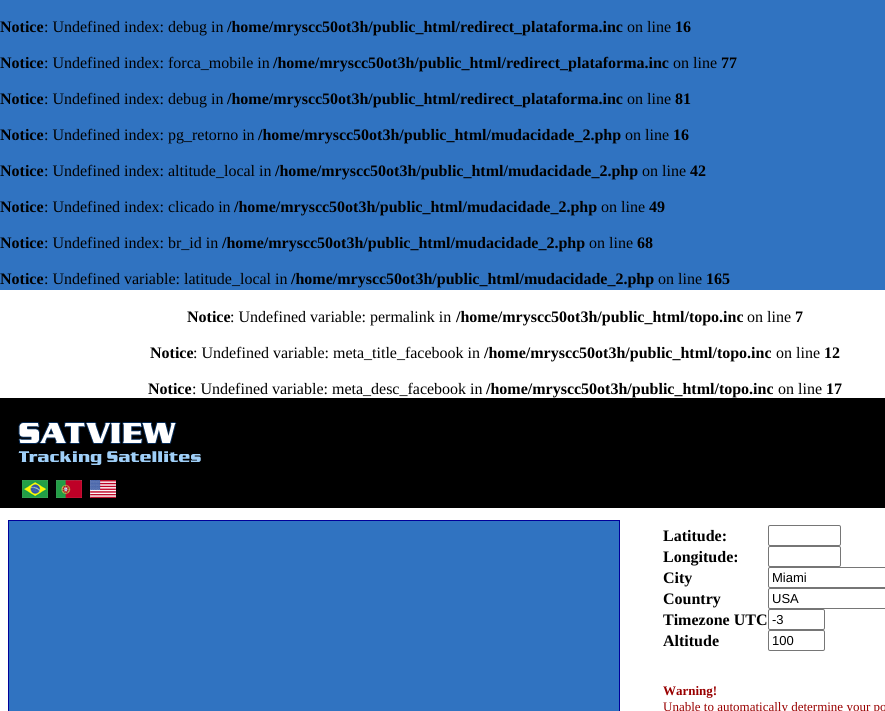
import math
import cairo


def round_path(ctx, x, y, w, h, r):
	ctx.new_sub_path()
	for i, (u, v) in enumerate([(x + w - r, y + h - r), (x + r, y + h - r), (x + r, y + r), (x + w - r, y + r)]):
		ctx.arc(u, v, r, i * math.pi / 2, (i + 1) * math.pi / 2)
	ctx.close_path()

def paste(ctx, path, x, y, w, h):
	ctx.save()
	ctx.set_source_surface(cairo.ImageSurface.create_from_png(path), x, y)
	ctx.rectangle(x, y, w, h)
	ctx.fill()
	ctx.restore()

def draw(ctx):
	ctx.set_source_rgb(0.188, 0.451, 0.757)
	ctx.paint()
	ctx.select_font_face('Liberation Serif', cairo.FONT_SLANT_NORMAL, cairo.FONT_WEIGHT_BOLD)
	ctx.set_font_size(16)
	ctx.set_source_rgb(0, 0, 0)
	ctx.move_to(0, 32)
	ctx.show_text('Notice')
	ctx.select_font_face('Liberation Serif')
	ctx.move_to(44, 32)
	ctx.show_text(': Undefined index: debug in')
	ctx.select_font_face('Liberation Serif', cairo.FONT_SLANT_NORMAL, cairo.FONT_WEIGHT_BOLD)
	ctx.move_to(227, 32)
	ctx.show_text('/home/mryscc50ot3h/public_html/redirect_plataforma.inc')
	ctx.select_font_face('Liberation Serif')
	ctx.move_to(627, 32)
	ctx.show_text('on line')
	ctx.select_font_face('Liberation Serif', cairo.FONT_SLANT_NORMAL, cairo.FONT_WEIGHT_BOLD)
	ctx.move_to(675, 32)
	ctx.show_text('16')
	ctx.move_to(0, 68)
	ctx.show_text('Notice')
	ctx.select_font_face('Liberation Serif')
	ctx.move_to(44, 68)
	ctx.show_text(': Undefined index: forca_mobile in')
	ctx.select_font_face('Liberation Serif', cairo.FONT_SLANT_NORMAL, cairo.FONT_WEIGHT_BOLD)
	ctx.move_to(273, 68)
	ctx.show_text('/home/mryscc50ot3h/public_html/redirect_plataforma.inc')
	ctx.select_font_face('Liberation Serif')
	ctx.move_to(673, 68)
	ctx.show_text('on line')
	ctx.select_font_face('Liberation Serif', cairo.FONT_SLANT_NORMAL, cairo.FONT_WEIGHT_BOLD)
	ctx.move_to(721, 68)
	ctx.show_text('77')
	ctx.move_to(0, 104)
	ctx.show_text('Notice')
	ctx.select_font_face('Liberation Serif')
	ctx.move_to(44, 104)
	ctx.show_text(': Undefined index: debug in')
	ctx.select_font_face('Liberation Serif', cairo.FONT_SLANT_NORMAL, cairo.FONT_WEIGHT_BOLD)
	ctx.move_to(227, 104)
	ctx.show_text('/home/mryscc50ot3h/public_html/redirect_plataforma.inc')
	ctx.select_font_face('Liberation Serif')
	ctx.move_to(627, 104)
	ctx.show_text('on line')
	ctx.select_font_face('Liberation Serif', cairo.FONT_SLANT_NORMAL, cairo.FONT_WEIGHT_BOLD)
	ctx.move_to(675, 104)
	ctx.show_text('81')
	ctx.move_to(0, 140)
	ctx.show_text('Notice')
	ctx.select_font_face('Liberation Serif')
	ctx.move_to(44, 140)
	ctx.show_text(': Undefined index: pg_retorno in')
	ctx.select_font_face('Liberation Serif', cairo.FONT_SLANT_NORMAL, cairo.FONT_WEIGHT_BOLD)
	ctx.move_to(258, 140)
	ctx.show_text('/home/mryscc50ot3h/public_html/mudacidade_2.php')
	ctx.select_font_face('Liberation Serif')
	ctx.move_to(625, 140)
	ctx.show_text('on line')
	ctx.select_font_face('Liberation Serif', cairo.FONT_SLANT_NORMAL, cairo.FONT_WEIGHT_BOLD)
	ctx.move_to(673, 140)
	ctx.show_text('16')
	ctx.move_to(0, 176)
	ctx.show_text('Notice')
	ctx.select_font_face('Liberation Serif')
	ctx.move_to(44, 176)
	ctx.show_text(': Undefined index: altitude_local in')
	ctx.select_font_face('Liberation Serif', cairo.FONT_SLANT_NORMAL, cairo.FONT_WEIGHT_BOLD)
	ctx.move_to(275, 176)
	ctx.show_text('/home/mryscc50ot3h/public_html/mudacidade_2.php')
	ctx.select_font_face('Liberation Serif')
	ctx.move_to(642, 176)
	ctx.show_text('on line')
	ctx.select_font_face('Liberation Serif', cairo.FONT_SLANT_NORMAL, cairo.FONT_WEIGHT_BOLD)
	ctx.move_to(690, 176)
	ctx.show_text('42')
	ctx.move_to(0, 212)
	ctx.show_text('Notice')
	ctx.select_font_face('Liberation Serif')
	ctx.move_to(44, 212)
	ctx.show_text(': Undefined index: clicado in')
	ctx.select_font_face('Liberation Serif', cairo.FONT_SLANT_NORMAL, cairo.FONT_WEIGHT_BOLD)
	ctx.move_to(234, 212)
	ctx.show_text('/home/mryscc50ot3h/public_html/mudacidade_2.php')
	ctx.select_font_face('Liberation Serif')
	ctx.move_to(601, 212)
	ctx.show_text('on line')
	ctx.select_font_face('Liberation Serif', cairo.FONT_SLANT_NORMAL, cairo.FONT_WEIGHT_BOLD)
	ctx.move_to(649, 212)
	ctx.show_text('49')
	ctx.move_to(0, 248)
	ctx.show_text('Notice')
	ctx.select_font_face('Liberation Serif')
	ctx.move_to(44, 248)
	ctx.show_text(': Undefined index: br_id in')
	ctx.select_font_face('Liberation Serif', cairo.FONT_SLANT_NORMAL, cairo.FONT_WEIGHT_BOLD)
	ctx.move_to(222, 248)
	ctx.show_text('/home/mryscc50ot3h/public_html/mudacidade_2.php')
	ctx.select_font_face('Liberation Serif')
	ctx.move_to(589, 248)
	ctx.show_text('on line')
	ctx.select_font_face('Liberation Serif', cairo.FONT_SLANT_NORMAL, cairo.FONT_WEIGHT_BOLD)
	ctx.move_to(637, 248)
	ctx.show_text('68')
	ctx.move_to(0, 284)
	ctx.show_text('Notice')
	ctx.select_font_face('Liberation Serif')
	ctx.move_to(44, 284)
	ctx.show_text(': Undefined variable: latitude_local in')
	ctx.select_font_face('Liberation Serif', cairo.FONT_SLANT_NORMAL, cairo.FONT_WEIGHT_BOLD)
	ctx.move_to(291, 284)
	ctx.show_text('/home/mryscc50ot3h/public_html/mudacidade_2.php')
	ctx.select_font_face('Liberation Serif')
	ctx.move_to(658, 284)
	ctx.show_text('on line')
	ctx.select_font_face('Liberation Serif', cairo.FONT_SLANT_NORMAL, cairo.FONT_WEIGHT_BOLD)
	ctx.move_to(706, 284)
	ctx.show_text('165')
	ctx.set_source_rgb(1, 1, 1)
	ctx.rectangle(0, 290, 885, 108)
	ctx.fill()
	ctx.set_source_rgb(0, 0, 0)
	ctx.move_to(187, 322)
	ctx.show_text('Notice')
	ctx.select_font_face('Liberation Serif')
	ctx.move_to(230, 322)
	ctx.show_text(': Undefined variable: permalink in')
	ctx.select_font_face('Liberation Serif', cairo.FONT_SLANT_NORMAL, cairo.FONT_WEIGHT_BOLD)
	ctx.move_to(456, 322)
	ctx.show_text('/home/mryscc50ot3h/public_html/topo.inc')
	ctx.select_font_face('Liberation Serif')
	ctx.move_to(747, 322)
	ctx.show_text('on line')
	ctx.select_font_face('Liberation Serif', cairo.FONT_SLANT_NORMAL, cairo.FONT_WEIGHT_BOLD)
	ctx.move_to(795, 322)
	ctx.show_text('7')
	ctx.move_to(150, 358)
	ctx.show_text('Notice')
	ctx.select_font_face('Liberation Serif')
	ctx.move_to(193, 358)
	ctx.show_text(': Undefined variable: meta_title_facebook in')
	ctx.select_font_face('Liberation Serif', cairo.FONT_SLANT_NORMAL, cairo.FONT_WEIGHT_BOLD)
	ctx.move_to(484, 358)
	ctx.show_text('/home/mryscc50ot3h/public_html/topo.inc')
	ctx.select_font_face('Liberation Serif')
	ctx.move_to(776, 358)
	ctx.show_text('on line')
	ctx.select_font_face('Liberation Serif', cairo.FONT_SLANT_NORMAL, cairo.FONT_WEIGHT_BOLD)
	ctx.move_to(824, 358)
	ctx.show_text('12')
	ctx.move_to(148, 394)
	ctx.show_text('Notice')
	ctx.select_font_face('Liberation Serif')
	ctx.move_to(192, 394)
	ctx.show_text(': Undefined variable: meta_desc_facebook in')
	ctx.select_font_face('Liberation Serif', cairo.FONT_SLANT_NORMAL, cairo.FONT_WEIGHT_BOLD)
	ctx.move_to(486, 394)
	ctx.show_text('/home/mryscc50ot3h/public_html/topo.inc')
	ctx.select_font_face('Liberation Serif')
	ctx.move_to(778, 394)
	ctx.show_text('on line')
	ctx.select_font_face('Liberation Serif', cairo.FONT_SLANT_NORMAL, cairo.FONT_WEIGHT_BOLD)
	ctx.move_to(826, 394)
	ctx.show_text('17')
	ctx.rectangle(0, 398, 885, 110)
	ctx.fill()
	paste(ctx, 'media/1.png', 18, 422, 183, 43)
	paste(ctx, 'media/2.png', 22, 480, 26, 18)
	paste(ctx, 'media/3.png', 56, 480, 26, 18)
	paste(ctx, 'media/4.png', 90, 480, 26, 18)
	ctx.set_source_rgb(1, 1, 1)
	ctx.rectangle(0, 508, 885, 203)
	ctx.fill()
	ctx.set_source_rgb(0.188, 0.451, 0.757)
	ctx.rectangle(8.5, 520.5, 611, 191)
	ctx.fill_preserve()
	ctx.set_source_rgb(0, 0, 0.6)
	ctx.set_line_width(1)
	ctx.stroke()
	ctx.set_source_rgb(0, 0, 0)
	ctx.move_to(663, 541)
	ctx.show_text('Latitude:')
	round_path(ctx, 768.5, 525.5, 72, 20, 1.5)
	ctx.set_source_rgb(0.463, 0.463, 0.463)
	ctx.stroke()
	ctx.set_source_rgb(0, 0, 0)
	ctx.move_to(663, 562)
	ctx.show_text('Longitude:')
	round_path(ctx, 768.5, 546.5, 72, 20, 1.5)
	ctx.set_source_rgb(0.463, 0.463, 0.463)
	ctx.stroke()
	ctx.set_source_rgb(0, 0, 0)
	ctx.move_to(663, 583)
	ctx.show_text('City')
	round_path(ctx, 768.5, 567.5, 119, 20, 1.5)
	ctx.set_source_rgb(0.463, 0.463, 0.463)
	ctx.stroke()
	ctx.select_font_face('Liberation Sans')
	ctx.set_font_size(13)
	ctx.set_source_rgb(0, 0, 0)
	ctx.move_to(772, 582)
	ctx.show_text('Miami')
	ctx.select_font_face('Liberation Serif', cairo.FONT_SLANT_NORMAL, cairo.FONT_WEIGHT_BOLD)
	ctx.set_font_size(16)
	ctx.move_to(663, 604)
	ctx.show_text('Country')
	round_path(ctx, 768.5, 588.5, 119, 20, 1.5)
	ctx.set_source_rgb(0.463, 0.463, 0.463)
	ctx.stroke()
	ctx.select_font_face('Liberation Sans')
	ctx.set_font_size(13)
	ctx.set_source_rgb(0, 0, 0)
	ctx.move_to(772, 603)
	ctx.show_text('USA')
	ctx.select_font_face('Liberation Serif', cairo.FONT_SLANT_NORMAL, cairo.FONT_WEIGHT_BOLD)
	ctx.set_font_size(16)
	ctx.move_to(663, 625)
	ctx.show_text('Timezone UTC')
	round_path(ctx, 768.5, 609.5, 56, 20, 1.5)
	ctx.set_source_rgb(0.463, 0.463, 0.463)
	ctx.stroke()
	ctx.select_font_face('Liberation Sans')
	ctx.set_font_size(13)
	ctx.set_source_rgb(0, 0, 0)
	ctx.move_to(772, 624)
	ctx.show_text('-3')
	ctx.select_font_face('Liberation Serif', cairo.FONT_SLANT_NORMAL, cairo.FONT_WEIGHT_BOLD)
	ctx.set_font_size(16)
	ctx.move_to(663, 646)
	ctx.show_text('Altitude')
	round_path(ctx, 768.5, 630.5, 56, 20, 1.5)
	ctx.set_source_rgb(0.463, 0.463, 0.463)
	ctx.stroke()
	ctx.select_font_face('Liberation Sans')
	ctx.set_font_size(13)
	ctx.set_source_rgb(0, 0, 0)
	ctx.move_to(772, 645)
	ctx.show_text('100')
	ctx.select_font_face('Liberation Serif', cairo.FONT_SLANT_NORMAL, cairo.FONT_WEIGHT_BOLD)
	ctx.set_source_rgb(0.6, 0, 0)
	ctx.move_to(663, 695)
	ctx.show_text('Warning!')
	ctx.select_font_face('Liberation Serif')
	ctx.move_to(663, 711)
	ctx.show_text('Unable to automatically determine your po')


surface = cairo.ImageSurface(cairo.FORMAT_RGB24, 885, 711)
ctx = cairo.Context(surface)
options = cairo.FontOptions()
options.set_hint_metrics(cairo.HINT_METRICS_OFF)
options.set_hint_style(cairo.HINT_STYLE_NONE)
ctx.set_font_options(options)
ctx.set_miter_limit(4)
draw(ctx)
surface.write_to_png('image.png')
